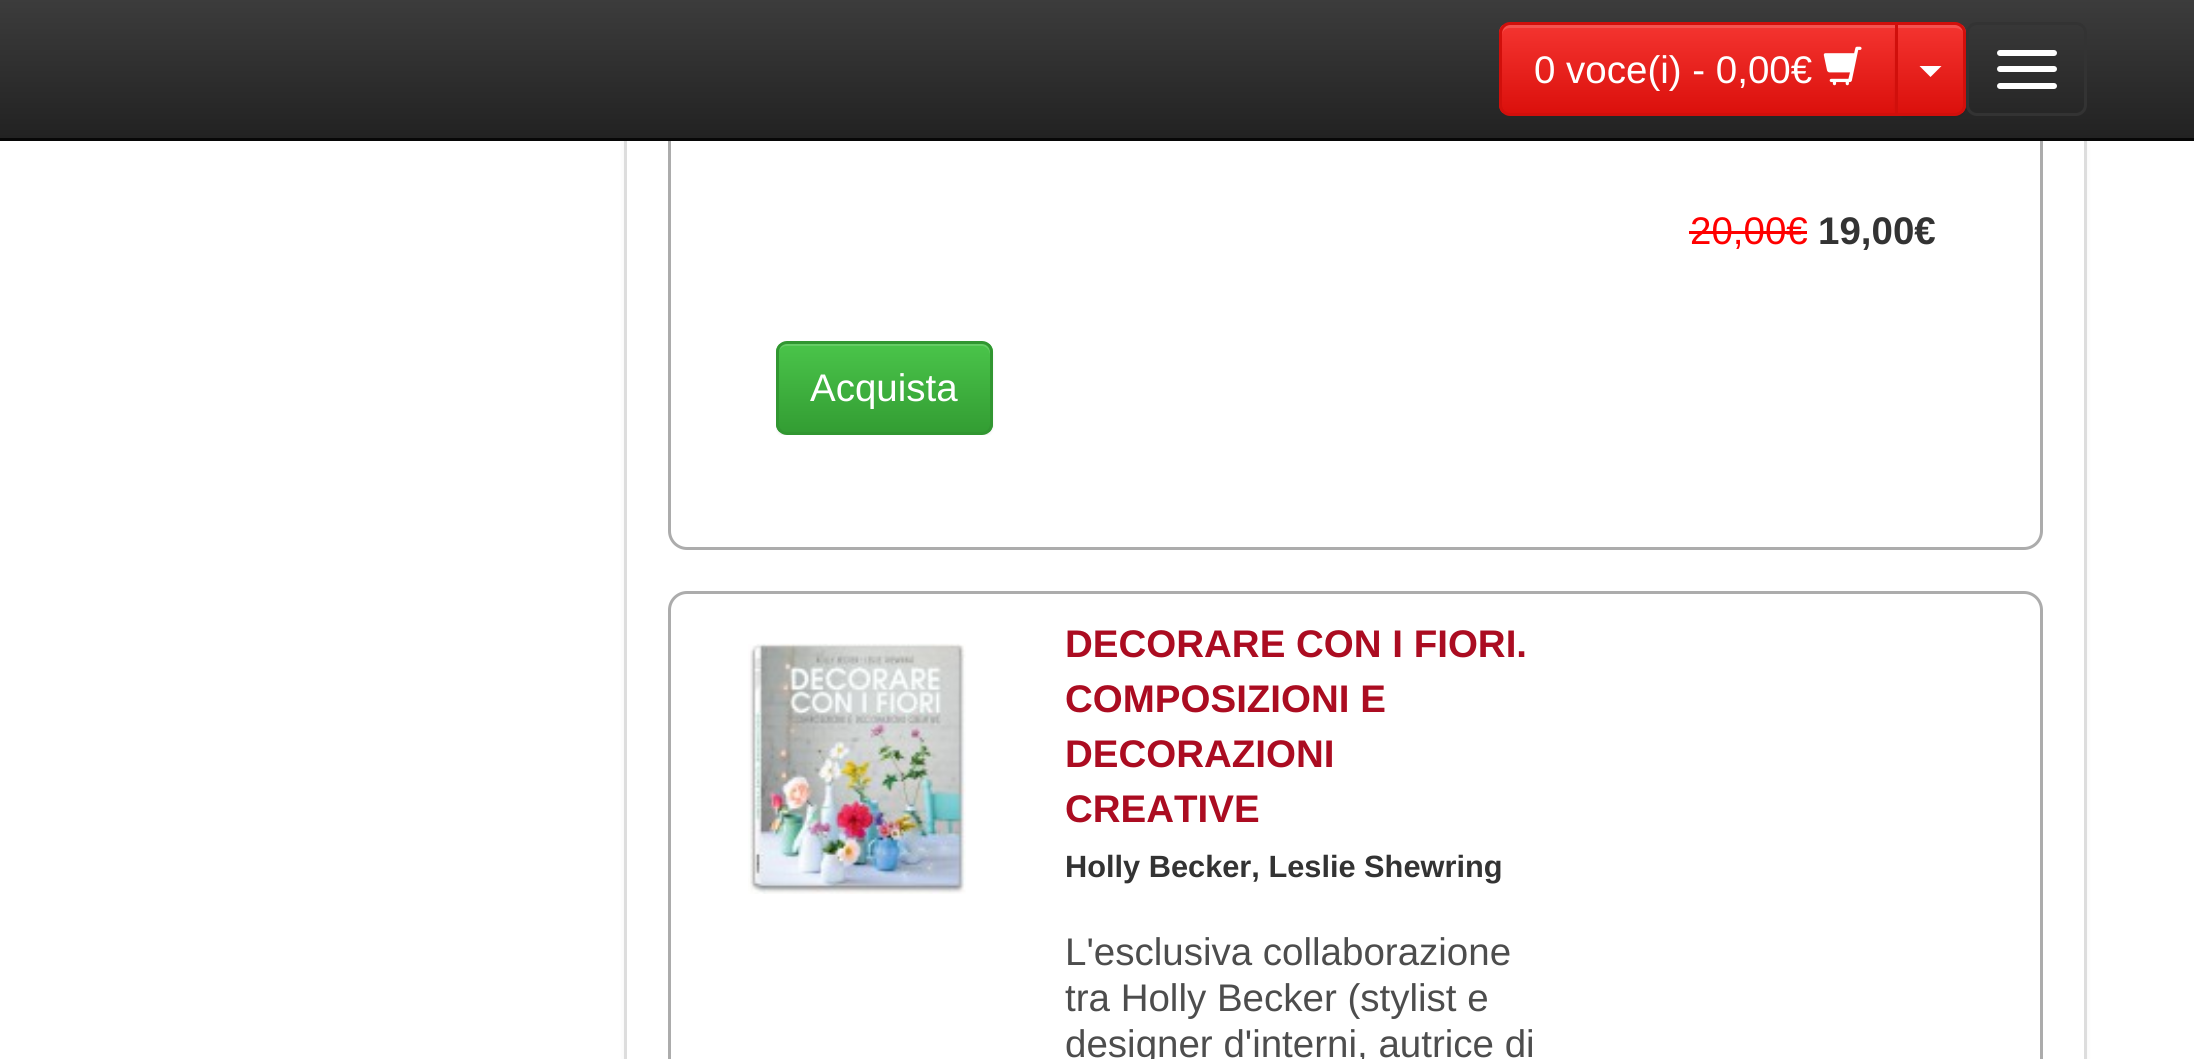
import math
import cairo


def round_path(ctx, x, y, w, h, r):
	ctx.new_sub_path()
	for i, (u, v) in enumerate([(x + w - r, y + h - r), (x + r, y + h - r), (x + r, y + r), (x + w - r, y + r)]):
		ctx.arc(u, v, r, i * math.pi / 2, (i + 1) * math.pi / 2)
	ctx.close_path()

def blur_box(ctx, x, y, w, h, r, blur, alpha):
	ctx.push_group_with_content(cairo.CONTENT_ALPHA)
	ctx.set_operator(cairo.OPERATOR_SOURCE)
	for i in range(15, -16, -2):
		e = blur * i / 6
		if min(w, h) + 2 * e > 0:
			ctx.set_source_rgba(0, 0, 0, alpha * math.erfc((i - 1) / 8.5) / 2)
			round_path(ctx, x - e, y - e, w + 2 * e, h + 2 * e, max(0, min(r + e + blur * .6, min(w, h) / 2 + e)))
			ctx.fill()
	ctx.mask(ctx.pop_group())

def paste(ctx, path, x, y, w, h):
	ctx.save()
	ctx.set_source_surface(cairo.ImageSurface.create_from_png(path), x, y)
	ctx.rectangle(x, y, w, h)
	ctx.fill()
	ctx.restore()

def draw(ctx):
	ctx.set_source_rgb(1, 1, 1)
	ctx.paint()
	ctx.set_source_rgb(0, 0, 0)
	blur_box(ctx, 624, -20, 1463, 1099, 11, 3, 0.05)
	ctx.set_source_rgb(1, 1, 1)
	ctx.rectangle(627, 141, 1457, 918)
	ctx.fill()
	ctx.rectangle(625.5, -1.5, 1460, 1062)
	ctx.set_source_rgb(0.867, 0.867, 0.867)
	ctx.set_line_width(3)
	ctx.stroke()
	round_path(ctx, 669.5, -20.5, 1372, 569, 17.5)
	ctx.set_source_rgb(0.675, 0.675, 0.675)
	ctx.stroke()
	gradient = cairo.LinearGradient(1097, 0, 1097, 138)
	gradient.add_color_stop_rgba(0, 0.235, 0.235, 0.235, 1)
	gradient.add_color_stop_rgba(1, 0.133, 0.133, 0.133, 1)
	ctx.set_source(gradient)
	ctx.rectangle(0, 0, 2194, 138)
	ctx.fill()
	ctx.set_source_rgb(0.031, 0.031, 0.031)
	ctx.rectangle(0, 138, 2194, 3)
	ctx.fill()
	ctx.save()
	ctx.new_path()
	ctx.move_to(1510, 22)
	ctx.line_to(1898, 22)
	ctx.line_to(1898, 116)
	ctx.line_to(1510, 116)
	ctx.curve_to(1504, 116, 1499, 111, 1499, 105)
	ctx.line_to(1499, 33)
	ctx.curve_to(1499, 27, 1504, 22, 1510, 22)
	ctx.close_path()
	ctx.clip()
	gradient = cairo.LinearGradient(1698, 25, 1698, 113)
	gradient.add_color_stop_rgba(0, 0.957, 0.204, 0.188, 1)
	gradient.add_color_stop_rgba(1, 0.859, 0.063, 0.047, 1)
	ctx.set_source(gradient)
	ctx.rectangle(1499, 25, 396, 88)
	ctx.fill()
	ctx.restore()
	ctx.set_source_rgb(0.961, 0.322, 0.306)
	ctx.new_path()
	ctx.move_to(1510, 28)
	ctx.line_to(1895, 28)
	ctx.line_to(1895, 25)
	ctx.line_to(1510, 25)
	ctx.curve_to(1504, 25, 1502, 31, 1502, 36)
	ctx.curve_to(1502, 31, 1505, 28, 1510, 28)
	ctx.close_path()
	ctx.fill()
	ctx.new_path()
	ctx.move_to(1510, 23.5)
	ctx.line_to(1896.5, 23.5)
	ctx.line_to(1896.5, 114.5)
	ctx.line_to(1510, 114.5)
	ctx.curve_to(1505, 114.5, 1500.5, 110, 1500.5, 105)
	ctx.line_to(1500.5, 33)
	ctx.curve_to(1500.5, 28, 1505, 23.5, 1510, 23.5)
	ctx.close_path()
	ctx.set_source_rgb(0.82, 0.059, 0.043)
	ctx.stroke()
	ctx.select_font_face('Liberation Sans')
	ctx.set_font_size(38.5)
	ctx.set_source_rgb(1, 1, 1)
	ctx.move_to(1534, 83)
	ctx.show_text('0 voce(i) - 0,00€')
	paste(ctx, 'media/1.png', 1823, 46, 39, 40)
	round_path(ctx, 1967.5, 23.5, 118, 91, 9.5)
	ctx.set_source_rgb(0.2, 0.2, 0.2)
	ctx.stroke()
	ctx.set_source_rgb(0, 0, 0)
	blur_box(ctx, 1895, 25, 71, 93, 11, 1.5, 0.07)
	ctx.save()
	ctx.new_path()
	ctx.move_to(1895, 22)
	ctx.line_to(1955, 22)
	ctx.curve_to(1961, 22, 1966, 27, 1966, 33)
	ctx.line_to(1966, 105)
	ctx.curve_to(1966, 111, 1961, 116, 1955, 116)
	ctx.line_to(1895, 116)
	ctx.close_path()
	ctx.clip()
	gradient = cairo.LinearGradient(1931, 25, 1931, 113)
	gradient.add_color_stop_rgba(0, 0.957, 0.204, 0.188, 1)
	gradient.add_color_stop_rgba(1, 0.859, 0.063, 0.047, 1)
	ctx.set_source(gradient)
	ctx.rectangle(1898, 25, 68, 88)
	ctx.fill()
	ctx.restore()
	ctx.set_source_rgba(1, 1, 1, 0.15)
	ctx.new_path()
	ctx.move_to(1898, 28)
	ctx.line_to(1955, 28)
	ctx.curve_to(1960, 28, 1964, 31, 1964, 36)
	ctx.line_to(1964, 33)
	ctx.curve_to(1964, 29, 1960, 25, 1956, 25)
	ctx.line_to(1898, 25)
	ctx.close_path()
	ctx.fill()
	ctx.new_path()
	ctx.move_to(1896.5, 23.5)
	ctx.line_to(1955, 23.5)
	ctx.curve_to(1960, 23.5, 1964.5, 28, 1964.5, 33)
	ctx.line_to(1964.5, 105)
	ctx.curve_to(1964.5, 110, 1960, 114.5, 1955, 114.5)
	ctx.line_to(1896.5, 114.5)
	ctx.close_path()
	ctx.set_source_rgb(0.82, 0.059, 0.043)
	ctx.stroke()
	ctx.set_source_rgb(1, 1, 1)
	ctx.new_path()
	ctx.move_to(1919.5, 66)
	ctx.line_to(1941.5, 66)
	ctx.line_to(1930.5, 77)
	ctx.close_path()
	ctx.fill()
	round_path(ctx, 1997, 50, 60, 6, 3)
	ctx.fill()
	round_path(ctx, 1997, 66, 60, 6, 3)
	ctx.fill()
	round_path(ctx, 1997, 83, 60, 6, 3)
	ctx.fill()
	ctx.set_source_rgb(1, 0, 0)
	ctx.move_to(1690, 244)
	ctx.show_text('20,00€')
	ctx.rectangle(1689, 231, 118, 3)
	ctx.fill()
	ctx.select_font_face('Liberation Sans', cairo.FONT_SLANT_NORMAL, cairo.FONT_WEIGHT_BOLD)
	ctx.set_source_rgb(0.2, 0.2, 0.2)
	ctx.move_to(1818, 244)
	ctx.show_text('19,00€')
	ctx.save()
	ctx.rectangle(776, 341, 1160, 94)
	ctx.clip()
	ctx.set_source_rgb(0, 0, 0)
	blur_box(ctx, 776, 344, 217, 93, 11, 1.5, 0.07)
	ctx.restore()
	ctx.save()
	round_path(ctx, 776, 341, 217, 94, 11)
	ctx.clip()
	gradient = cairo.LinearGradient(884, 344, 884, 432)
	gradient.add_color_stop_rgba(0, 0.29, 0.769, 0.29, 1)
	gradient.add_color_stop_rgba(1, 0.2, 0.616, 0.2, 1)
	ctx.set_source(gradient)
	ctx.rectangle(776, 344, 217, 88)
	ctx.fill()
	ctx.restore()
	ctx.set_source_rgba(1, 1, 1, 0.15)
	ctx.new_path()
	ctx.move_to(786, 346)
	ctx.line_to(982, 346)
	ctx.curve_to(986, 346, 990, 350, 990, 355)
	ctx.line_to(990, 352)
	ctx.curve_to(990, 348, 986, 344, 982, 344)
	ctx.line_to(786, 344)
	ctx.curve_to(782, 344, 778, 348, 778, 352)
	ctx.line_to(778, 355)
	ctx.curve_to(778, 350, 782, 346, 786, 346)
	ctx.close_path()
	ctx.fill()
	round_path(ctx, 777.5, 342.5, 214, 91, 9.5)
	ctx.set_source_rgb(0.192, 0.588, 0.192)
	ctx.stroke()
	ctx.select_font_face('Liberation Sans')
	ctx.set_source_rgb(1, 1, 1)
	ctx.move_to(810, 401)
	ctx.show_text('Acquista')
	round_path(ctx, 669.5, 592.5, 1372, 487, 17.5)
	ctx.set_source_rgb(0.675, 0.675, 0.675)
	ctx.stroke()
	paste(ctx, 'media/2.png', 748, 643, 218, 251)
	ctx.select_font_face('Liberation Sans', cairo.FONT_SLANT_NORMAL, cairo.FONT_WEIGHT_BOLD)
	ctx.set_source_rgb(0.671, 0.047, 0.129)
	for x, y, s in [
		(1065, 657, 'DECORARE CON I FIORI.'),
		(1065, 712, 'COMPOSIZIONI E'),
		(1065, 767, 'DECORAZIONI'),
		(1065, 822, 'CREATIVE'),
	]:
		ctx.move_to(x, y)
		ctx.show_text(s)
	ctx.set_font_size(30.75)
	ctx.set_source_rgb(0.2, 0.2, 0.2)
	ctx.move_to(1065, 877)
	ctx.show_text('Holly Becker, Leslie Shewring')
	ctx.select_font_face('Liberation Sans')
	ctx.set_font_size(38.5)
	ctx.set_source_rgb(0.302, 0.302, 0.302)
	for x, y, s in [
		(1065, 965, 'L\'esclusiva collaborazione'),
		(1065, 1011, 'tra Holly Becker (stylist e'),
		(1065, 1057, 'designer d\'interni, autrice di'),
	]:
		ctx.move_to(x, y)
		ctx.show_text(s)


surface = cairo.ImageSurface(cairo.FORMAT_RGB24, 2194, 1059)
ctx = cairo.Context(surface)
options = cairo.FontOptions()
options.set_hint_metrics(cairo.HINT_METRICS_OFF)
options.set_hint_style(cairo.HINT_STYLE_NONE)
ctx.set_font_options(options)
ctx.set_miter_limit(4)
draw(ctx)
surface.write_to_png('image.png')
